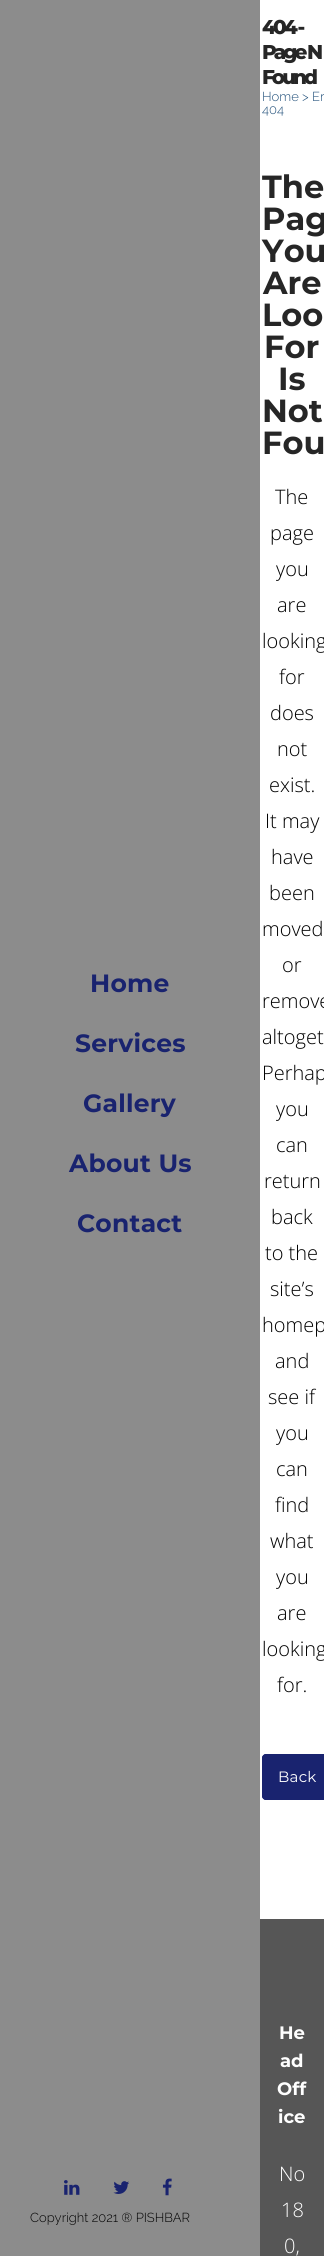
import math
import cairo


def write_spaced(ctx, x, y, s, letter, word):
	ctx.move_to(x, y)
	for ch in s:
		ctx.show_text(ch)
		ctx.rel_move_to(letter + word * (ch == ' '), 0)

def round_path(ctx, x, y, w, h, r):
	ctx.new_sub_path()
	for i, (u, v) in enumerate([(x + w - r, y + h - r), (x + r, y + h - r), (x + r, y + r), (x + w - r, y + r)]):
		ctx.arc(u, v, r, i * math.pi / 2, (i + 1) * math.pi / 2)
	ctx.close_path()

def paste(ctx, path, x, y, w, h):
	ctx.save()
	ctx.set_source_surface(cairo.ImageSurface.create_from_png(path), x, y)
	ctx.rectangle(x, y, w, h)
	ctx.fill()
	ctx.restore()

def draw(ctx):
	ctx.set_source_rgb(1, 1, 1)
	ctx.paint()
	ctx.set_source_rgb(0.549, 0.549, 0.549)
	ctx.rectangle(0, 0, 260, 2256)
	ctx.fill()
	ctx.select_font_face('Montserrat', cairo.FONT_SLANT_NORMAL, cairo.FONT_WEIGHT_BOLD)
	ctx.set_font_size(25)
	ctx.set_source_rgb(0.098, 0.137, 0.435)
	for x, y, s in [
		(90, 992, 'Home'),
		(75, 1052, 'Services'),
		(83, 1112, 'Gallery'),
		(69, 1172, 'About Us'),
		(77, 1232, 'Contact'),
	]:
		write_spaced(ctx, x, y, s, 0.25, 0)
	paste(ctx, 'media/1.png', 64, 2180, 16, 15)
	paste(ctx, 'media/2.png', 113, 2181, 17, 13)
	paste(ctx, 'media/3.png', 162, 2178, 10, 18)
	ctx.select_font_face('Raleway Light')
	ctx.set_font_size(13)
	ctx.set_source_rgb(0, 0, 0)
	ctx.move_to(30, 2222)
	ctx.show_text('Copyright 2021 ® PISHBAR')
	ctx.select_font_face('Montserrat ExtraBold')
	ctx.set_font_size(20)
	ctx.set_source_rgb(0.149, 0.149, 0.149)
	for x, y, s in [
		(262, 34, '404 -'),
		(262, 59, 'Page N'),
		(262, 84, 'Found'),
	]:
		write_spaced(ctx, x, y, s, -3, 0)
	ctx.select_font_face('Raleway Light')
	ctx.set_font_size(13)
	ctx.set_source_rgb(0.122, 0.306, 0.475)
	ctx.move_to(262, 101)
	ctx.show_text('Home > Er')
	ctx.move_to(262, 114)
	ctx.show_text('404')
	ctx.select_font_face('Montserrat', cairo.FONT_SLANT_NORMAL, cairo.FONT_WEIGHT_BOLD)
	ctx.set_font_size(32)
	ctx.set_source_rgb(0.149, 0.149, 0.149)
	for x, y, s in [
		(262, 198, 'The'),
		(262, 230, 'Pag'),
		(262, 262, 'You'),
		(263, 294, 'Are'),
		(262, 326, 'Loo'),
		(264, 358, 'For'),
		(278, 390, 'Is'),
		(262, 422, 'Not'),
		(262, 454, 'Fou'),
	]:
		ctx.move_to(x, y)
		ctx.show_text(s)
	ctx.select_font_face('Open Sans Light')
	ctx.set_font_size(20)
	ctx.set_source_rgb(0, 0, 0)
	for x, y, s in [
		(275, 504, 'The'),
		(270, 540, 'page'),
		(276, 576, 'you'),
		(277, 612, 'are'),
		(262, 648, 'looking'),
		(279, 684, 'for'),
		(270, 720, 'does'),
		(277, 756, 'not'),
		(269, 792, 'exist.'),
		(265, 828, 'It may'),
		(271, 864, 'have'),
		(269, 900, 'been'),
		(262, 936, 'moved'),
		(282, 972, 'or'),
		(262, 1008, 'remove'),
		(262, 1044, 'altoget'),
		(262, 1080, 'Perhap'),
		(276, 1116, 'you'),
		(276, 1152, 'can'),
		(264, 1188, 'return'),
		(271, 1224, 'back'),
		(265, 1260, 'to the'),
		(270, 1296, 'site’s'),
		(262, 1332, 'homep'),
		(275, 1368, 'and'),
		(268, 1404, 'see if'),
		(276, 1440, 'you'),
		(276, 1476, 'can'),
		(275, 1512, 'find'),
		(270, 1548, 'what'),
		(276, 1584, 'you'),
		(277, 1620, 'are'),
		(262, 1656, 'looking'),
		(277, 1692, 'for.'),
	]:
		ctx.move_to(x, y)
		ctx.show_text(s)
	ctx.set_source_rgb(0.098, 0.137, 0.435)
	ctx.new_path()
	ctx.move_to(266, 1754)
	ctx.line_to(324, 1754)
	ctx.line_to(324, 1800)
	ctx.line_to(266, 1800)
	ctx.curve_to(264, 1800, 262, 1798, 262, 1796)
	ctx.line_to(262, 1758)
	ctx.curve_to(262, 1756, 264, 1754, 266, 1754)
	ctx.close_path()
	ctx.fill()
	round_path(ctx, 263, 1755, 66, 44, 3)
	ctx.stroke()
	ctx.select_font_face('Montserrat')
	ctx.set_font_size(15)
	ctx.set_source_rgb(1, 1, 1)
	write_spaced(ctx, 278, 1782, 'Back', 0.25, 0)
	ctx.set_source_rgb(0.337, 0.337, 0.337)
	ctx.rectangle(260, 1919, 64, 337)
	ctx.fill()
	ctx.select_font_face('Montserrat', cairo.FONT_SLANT_NORMAL, cairo.FONT_WEIGHT_BOLD)
	ctx.set_font_size(18)
	ctx.set_source_rgb(1, 1, 1)
	for x, y, s in [
		(279, 2039, 'He'),
		(280, 2067, 'ad'),
		(277, 2095, 'Off'),
		(278, 2123, 'ice'),
	]:
		ctx.move_to(x, y)
		ctx.show_text(s)
	ctx.select_font_face('Open Sans Light')
	ctx.set_font_size(20)
	for x, y, s in [
		(279, 2181, 'No'),
		(281, 2217, '18'),
		(284, 2253, '0,'),
	]:
		ctx.move_to(x, y)
		ctx.show_text(s)


surface = cairo.ImageSurface(cairo.FORMAT_RGB24, 324, 2256)
ctx = cairo.Context(surface)
options = cairo.FontOptions()
options.set_hint_metrics(cairo.HINT_METRICS_OFF)
options.set_hint_style(cairo.HINT_STYLE_NONE)
ctx.set_font_options(options)
ctx.set_miter_limit(4)
draw(ctx)
surface.write_to_png('image.png')
